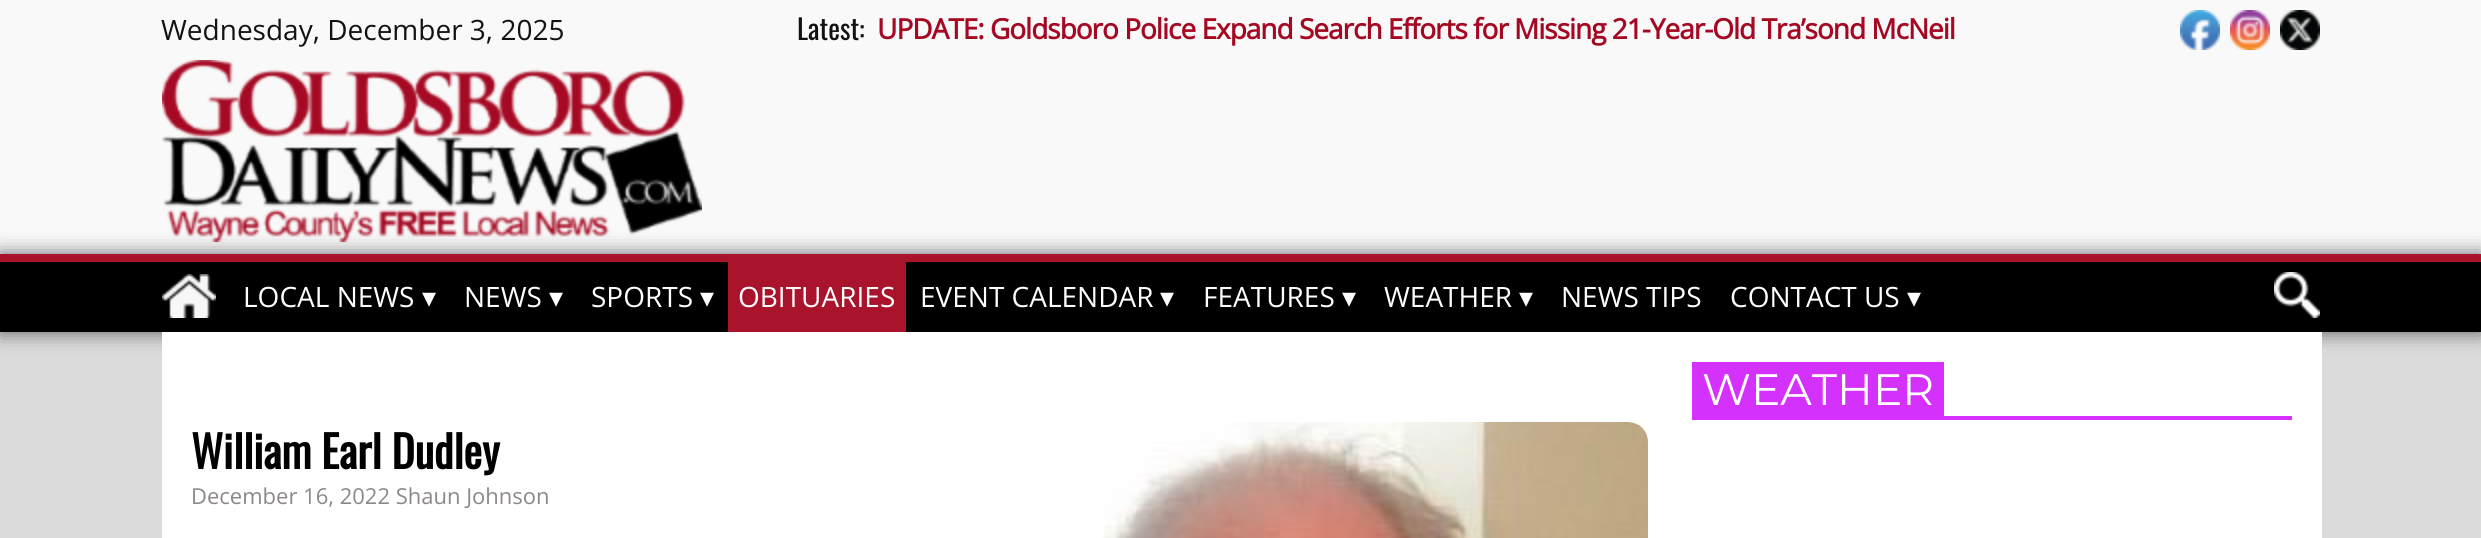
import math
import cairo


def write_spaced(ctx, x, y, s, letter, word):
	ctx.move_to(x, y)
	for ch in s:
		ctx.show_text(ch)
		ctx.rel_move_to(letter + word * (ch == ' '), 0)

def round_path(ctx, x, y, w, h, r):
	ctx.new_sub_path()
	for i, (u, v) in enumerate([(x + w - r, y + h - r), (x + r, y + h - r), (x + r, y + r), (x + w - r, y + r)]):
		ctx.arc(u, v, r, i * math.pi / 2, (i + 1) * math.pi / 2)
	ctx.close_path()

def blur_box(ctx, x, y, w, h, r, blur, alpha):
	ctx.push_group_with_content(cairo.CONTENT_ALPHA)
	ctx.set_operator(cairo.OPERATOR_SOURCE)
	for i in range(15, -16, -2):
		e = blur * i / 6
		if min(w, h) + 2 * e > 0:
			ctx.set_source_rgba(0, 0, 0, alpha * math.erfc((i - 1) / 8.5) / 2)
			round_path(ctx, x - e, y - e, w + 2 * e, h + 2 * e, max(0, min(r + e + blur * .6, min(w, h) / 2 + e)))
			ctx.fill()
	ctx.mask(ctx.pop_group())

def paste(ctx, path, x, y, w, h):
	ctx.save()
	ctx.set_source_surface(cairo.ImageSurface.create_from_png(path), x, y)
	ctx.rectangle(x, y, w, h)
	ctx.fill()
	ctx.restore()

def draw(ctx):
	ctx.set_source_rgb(0.859, 0.859, 0.859)
	ctx.paint()
	ctx.set_source_rgb(0.973, 0.973, 0.973)
	ctx.rectangle(0, 0, 2481, 254)
	ctx.fill()
	ctx.select_font_face('Open Sans')
	ctx.set_font_size(28)
	ctx.set_source_rgb(0.071, 0.071, 0.071)
	ctx.move_to(161, 40)
	ctx.show_text('Wednesday, December 3, 2025')
	ctx.set_source_rgb(0, 0, 0)
	blur_box(ctx, 0, 254, 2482, 78, 0, 10, 0.6)
	paste(ctx, 'media/1.png', 162, 60, 540, 182)
	ctx.select_font_face('Oswald')
	ctx.set_source_rgb(0.071, 0.071, 0.071)
	ctx.move_to(797, 40)
	ctx.show_text('Latest:')
	ctx.select_font_face('Open Sans', cairo.FONT_SLANT_NORMAL, cairo.FONT_WEIGHT_BOLD)
	ctx.set_source_rgb(0.647, 0.035, 0.137)
	write_spaced(ctx, 877, 39, 'UPDATE: Goldsboro Police Expand Search Efforts for Missing 21-Year-Old Tra’sond McNeil', -1, 0)
	paste(ctx, 'media/2.png', 2180, 10, 40, 40)
	paste(ctx, 'media/3.png', 2230, 10, 40, 40)
	paste(ctx, 'media/4.png', 2280, 10, 40, 40)
	ctx.set_source_rgb(0, 0, 0)
	ctx.rectangle(0, 262, 2481, 70)
	ctx.fill()
	ctx.set_source_rgb(0.663, 0.078, 0.173)
	ctx.rectangle(0, 254, 2481, 8)
	ctx.fill()
	paste(ctx, 'media/5.png', 162, 274, 54, 44)
	ctx.select_font_face('Open Sans')
	ctx.set_source_rgb(1, 1, 1)
	ctx.move_to(243, 307)
	ctx.show_text('LOCAL NEWS')
	ctx.select_font_face('DejaVu Sans')
	ctx.move_to(422, 307)
	ctx.show_text('▾')
	ctx.select_font_face('Open Sans')
	ctx.move_to(464, 307)
	ctx.show_text('NEWS')
	ctx.select_font_face('DejaVu Sans')
	ctx.move_to(549, 307)
	ctx.show_text('▾')
	ctx.select_font_face('Open Sans')
	ctx.move_to(591, 307)
	ctx.show_text('SPORTS')
	ctx.select_font_face('DejaVu Sans')
	ctx.move_to(700, 307)
	ctx.show_text('▾')
	ctx.set_source_rgb(0.663, 0.078, 0.173)
	ctx.rectangle(728, 262, 178, 70)
	ctx.fill()
	ctx.select_font_face('Open Sans')
	ctx.set_source_rgb(1, 1, 1)
	ctx.move_to(738, 307)
	ctx.show_text('OBITUARIES')
	ctx.move_to(920, 307)
	ctx.show_text('EVENT CALENDAR')
	ctx.select_font_face('DejaVu Sans')
	ctx.move_to(1160, 307)
	ctx.show_text('▾')
	ctx.select_font_face('Open Sans')
	ctx.move_to(1203, 307)
	ctx.show_text('FEATURES')
	ctx.select_font_face('DejaVu Sans')
	ctx.move_to(1342, 307)
	ctx.show_text('▾')
	ctx.select_font_face('Open Sans')
	ctx.move_to(1384, 307)
	ctx.show_text('WEATHER')
	ctx.select_font_face('DejaVu Sans')
	ctx.move_to(1519, 307)
	ctx.show_text('▾')
	ctx.select_font_face('Open Sans')
	ctx.move_to(1561, 307)
	ctx.show_text('NEWS TIPS')
	ctx.move_to(1730, 307)
	ctx.show_text('CONTACT US')
	ctx.select_font_face('DejaVu Sans')
	ctx.move_to(1907, 307)
	ctx.show_text('▾')
	paste(ctx, 'media/6.png', 2274, 272, 46, 46)
	ctx.rectangle(162, 332, 2160, 206)
	ctx.fill()
	ctx.set_source_rgb(0.831, 0.192, 0.992)
	ctx.rectangle(1692, 416, 600, 4)
	ctx.rectangle(1692, 362, 252, 54)
	ctx.fill()
	ctx.select_font_face('Montserrat Thin')
	ctx.set_font_size(44)
	ctx.set_source_rgb(1, 1, 1)
	ctx.move_to(1702, 405)
	ctx.show_text('WEATHER')
	ctx.select_font_face('Oswald', cairo.FONT_SLANT_NORMAL, cairo.FONT_WEIGHT_BOLD)
	ctx.set_source_rgb(0, 0, 0)
	ctx.move_to(191, 469)
	ctx.show_text('William Earl Dudley')
	ctx.select_font_face('Open Sans')
	ctx.set_font_size(22)
	ctx.set_source_rgb(0.549, 0.533, 0.529)
	ctx.move_to(191, 504)
	ctx.show_text('December 16, 2022 Shaun Johnson')
	paste(ctx, 'media/7.png', 1103, 422, 545, 116)


surface = cairo.ImageSurface(cairo.FORMAT_RGB24, 2481, 538)
ctx = cairo.Context(surface)
options = cairo.FontOptions()
options.set_hint_metrics(cairo.HINT_METRICS_OFF)
options.set_hint_style(cairo.HINT_STYLE_NONE)
ctx.set_font_options(options)
ctx.set_miter_limit(4)
draw(ctx)
surface.write_to_png('image.png')
